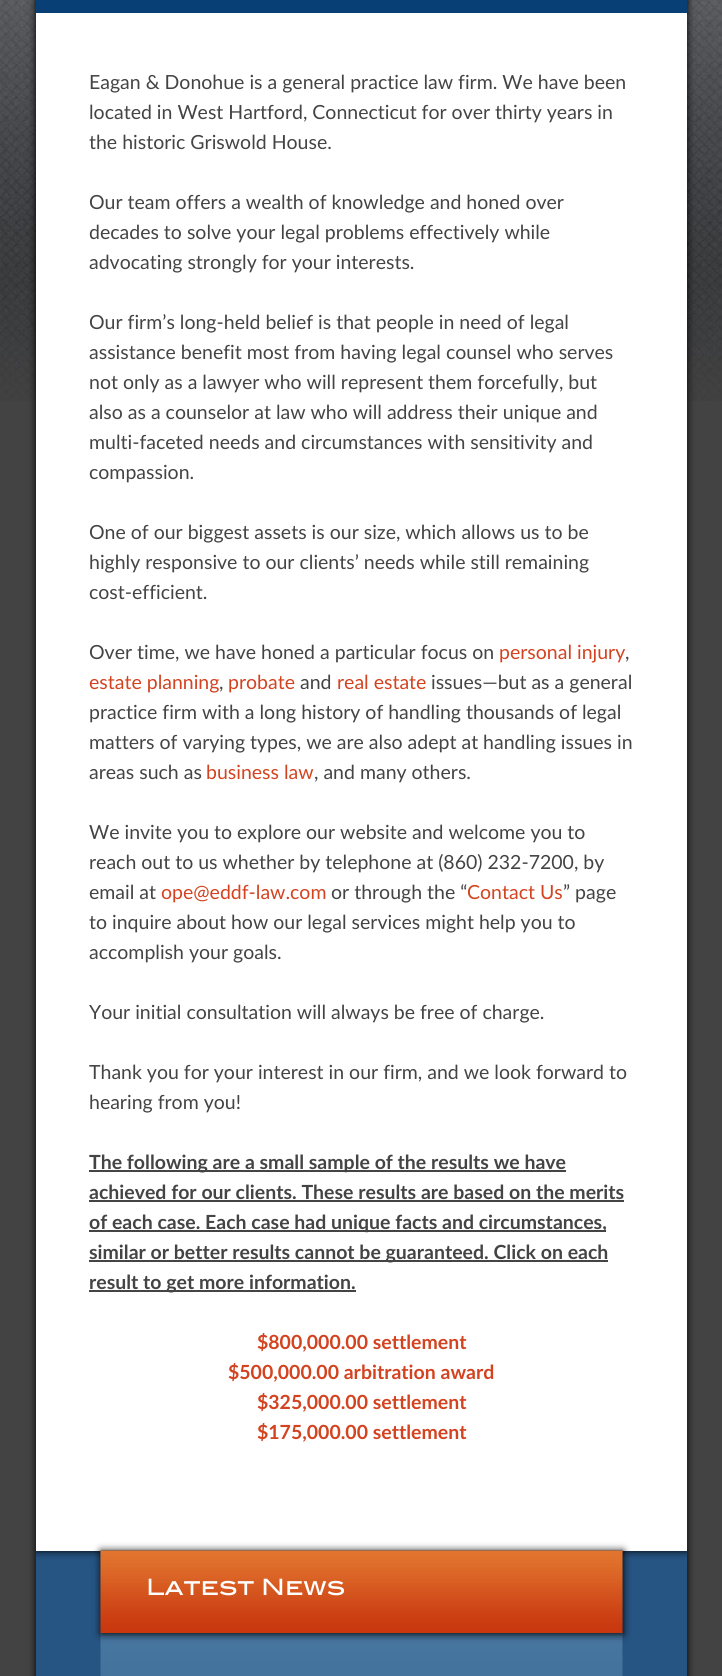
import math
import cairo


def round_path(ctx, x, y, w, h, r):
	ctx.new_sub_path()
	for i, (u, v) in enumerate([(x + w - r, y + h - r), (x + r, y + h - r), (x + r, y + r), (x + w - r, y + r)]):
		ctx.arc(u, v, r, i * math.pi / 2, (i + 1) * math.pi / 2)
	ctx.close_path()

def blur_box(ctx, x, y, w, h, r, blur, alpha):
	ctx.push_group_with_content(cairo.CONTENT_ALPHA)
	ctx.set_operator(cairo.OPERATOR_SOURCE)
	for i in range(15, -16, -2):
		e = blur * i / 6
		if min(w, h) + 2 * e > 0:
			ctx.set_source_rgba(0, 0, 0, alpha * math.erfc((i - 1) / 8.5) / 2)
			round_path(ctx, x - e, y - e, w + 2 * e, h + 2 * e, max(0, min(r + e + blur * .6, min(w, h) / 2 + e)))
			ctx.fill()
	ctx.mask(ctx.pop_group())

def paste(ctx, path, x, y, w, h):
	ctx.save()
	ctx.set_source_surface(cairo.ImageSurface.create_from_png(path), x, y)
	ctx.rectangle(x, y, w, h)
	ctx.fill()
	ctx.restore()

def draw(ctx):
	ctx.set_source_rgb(0.263, 0.263, 0.263)
	ctx.paint()
	paste(ctx, 'media/1.png', 0, 0, 722, 401)
	ctx.set_source_rgb(0, 0, 0)
	blur_box(ctx, 36, -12, 651, 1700, 0, 4, 1)
	ctx.set_source_rgb(0.149, 0.329, 0.514)
	ctx.rectangle(36, 1551, 651, 125)
	ctx.fill()
	ctx.save()
	ctx.rectangle(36, 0, 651, 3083)
	ctx.clip()
	ctx.set_source_rgb(0, 0, 0)
	blur_box(ctx, 36, -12, 651, 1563, 0, 4, 1)
	ctx.restore()
	ctx.set_source_rgb(1, 1, 1)
	ctx.rectangle(36, 13, 651, 1538)
	ctx.fill()
	ctx.set_source_rgb(0.035, 0.247, 0.459)
	ctx.rectangle(36, 0, 651, 13)
	ctx.fill()
	ctx.select_font_face('Lato')
	ctx.set_font_size(19.5)
	ctx.set_source_rgb(0.267, 0.267, 0.267)
	for x, y, s in [
		(89, 89, 'Eagan & Donohue is a general practice law firm. We have been'),
		(89, 119, 'located in West Hartford, Connecticut for over thirty years in'),
		(89, 149, 'the historic Griswold House.'),
		(89, 209, 'Our team offers a wealth of knowledge and honed over'),
		(89, 239, 'decades to solve your legal problems effectively while'),
		(89, 269, 'advocating strongly for your interests.'),
		(89, 329, 'Our firm’s long-held belief is that people in need of legal'),
		(89, 359, 'assistance benefit most from having legal counsel who serves'),
		(89, 389, 'not only as a lawyer who will represent them forcefully, but'),
		(89, 419, 'also as a counselor at law who will address their unique and'),
		(89, 449, 'multi-faceted needs and circumstances with sensitivity and'),
		(89, 479, 'compassion.'),
		(89, 539, 'One of our biggest assets is our size, which allows us to be'),
		(89, 569, 'highly responsive to our clients’ needs while still remaining'),
		(89, 599, 'cost-efficient.'),
		(89, 659, 'Over time, we have honed a particular focus on'),
	]:
		ctx.move_to(x, y)
		ctx.show_text(s)
	ctx.set_source_rgb(0.827, 0.263, 0.125)
	ctx.move_to(499, 659)
	ctx.show_text('personal injury')
	ctx.set_source_rgb(0.267, 0.267, 0.267)
	ctx.move_to(625, 659)
	ctx.show_text(',')
	ctx.set_source_rgb(0.827, 0.263, 0.125)
	ctx.move_to(89, 689)
	ctx.show_text('estate planning')
	ctx.set_source_rgb(0.267, 0.267, 0.267)
	ctx.move_to(219, 689)
	ctx.show_text(',')
	ctx.set_source_rgb(0.827, 0.263, 0.125)
	ctx.move_to(228, 689)
	ctx.show_text('probate')
	ctx.set_source_rgb(0.267, 0.267, 0.267)
	ctx.move_to(300, 689)
	ctx.show_text('and')
	ctx.set_source_rgb(0.827, 0.263, 0.125)
	ctx.move_to(337, 689)
	ctx.show_text('real estate')
	ctx.set_source_rgb(0.267, 0.267, 0.267)
	for x, y, s in [
		(431, 689, 'issues—but as a general'),
		(89, 719, 'practice firm with a long history of handling thousands of legal'),
		(89, 749, 'matters of varying types, we are also adept at handling issues in'),
		(89, 779, 'areas such as'),
	]:
		ctx.move_to(x, y)
		ctx.show_text(s)
	ctx.set_source_rgb(0.827, 0.263, 0.125)
	ctx.move_to(206, 779)
	ctx.show_text('business law')
	ctx.set_source_rgb(0.267, 0.267, 0.267)
	for x, y, s in [
		(314, 779, ', and many others.'),
		(89, 839, 'We invite you to explore our website and welcome you to'),
		(89, 869, 'reach out to us whether by telephone at (860) 232-7200, by'),
		(89, 899, 'email at'),
	]:
		ctx.move_to(x, y)
		ctx.show_text(s)
	ctx.set_source_rgb(0.827, 0.263, 0.125)
	ctx.move_to(161, 899)
	ctx.show_text('ope@eddf-law.com')
	ctx.set_source_rgb(0.267, 0.267, 0.267)
	ctx.move_to(331, 899)
	ctx.show_text('or through the “')
	ctx.set_source_rgb(0.827, 0.263, 0.125)
	ctx.move_to(467, 899)
	ctx.show_text('Contact Us')
	ctx.set_source_rgb(0.267, 0.267, 0.267)
	for x, y, s in [
		(563, 899, '” page'),
		(89, 929, 'to inquire about how our legal services might help you to'),
		(89, 959, 'accomplish your goals.'),
		(89, 1019, 'Your initial consultation will always be free of charge.'),
		(89, 1079, 'Thank you for your interest in our firm, and we look forward to'),
		(89, 1109, 'hearing from you!'),
	]:
		ctx.move_to(x, y)
		ctx.show_text(s)
	ctx.rectangle(89, 1170, 477, 2)
	ctx.fill()
	ctx.select_font_face('Lato', cairo.FONT_SLANT_NORMAL, cairo.FONT_WEIGHT_BOLD)
	ctx.move_to(89, 1169)
	ctx.show_text('The following are a small sample of the results we have')
	ctx.move_to(89, 1199)
	ctx.show_text('achieved for our clients. These results are based on the merits')
	ctx.rectangle(89, 1200, 535, 2)
	ctx.fill()
	ctx.rectangle(89, 1230, 517, 2)
	ctx.fill()
	ctx.move_to(89, 1229)
	ctx.show_text('of each case. Each case had unique facts and circumstances,')
	ctx.rectangle(89, 1260, 519, 2)
	ctx.fill()
	ctx.move_to(89, 1259)
	ctx.show_text('similar or better results cannot be guaranteed. Click on each')
	ctx.rectangle(89, 1290, 267, 2)
	ctx.fill()
	ctx.move_to(89, 1289)
	ctx.show_text('result to get more information.')
	ctx.set_source_rgb(0.827, 0.263, 0.125)
	for x, y, s in [
		(257, 1349, '$800,000.00 settlement'),
		(228, 1379, '$500,000.00 arbitration award'),
		(257, 1409, '$325,000.00 settlement'),
		(257, 1439, '$175,000.00 settlement'),
	]:
		ctx.move_to(x, y)
		ctx.show_text(s)
	paste(ctx, 'media/2.png', 100, 1550, 523, 126)
	ctx.set_source_rgb(0, 0, 0)
	blur_box(ctx, 101, 1551, 522, 83, 0, 4, 1)
	paste(ctx, 'media/3.png', 100, 1550, 523, 83)
	ctx.select_font_face('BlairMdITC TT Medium')
	ctx.set_font_size(22.5)
	ctx.set_source_rgb(1, 1, 1)
	ctx.move_to(146, 1595)
	ctx.show_text('Latest News')


surface = cairo.ImageSurface(cairo.FORMAT_RGB24, 722, 1676)
ctx = cairo.Context(surface)
options = cairo.FontOptions()
options.set_hint_metrics(cairo.HINT_METRICS_OFF)
options.set_hint_style(cairo.HINT_STYLE_NONE)
ctx.set_font_options(options)
ctx.set_miter_limit(4)
draw(ctx)
surface.write_to_png('image.png')
